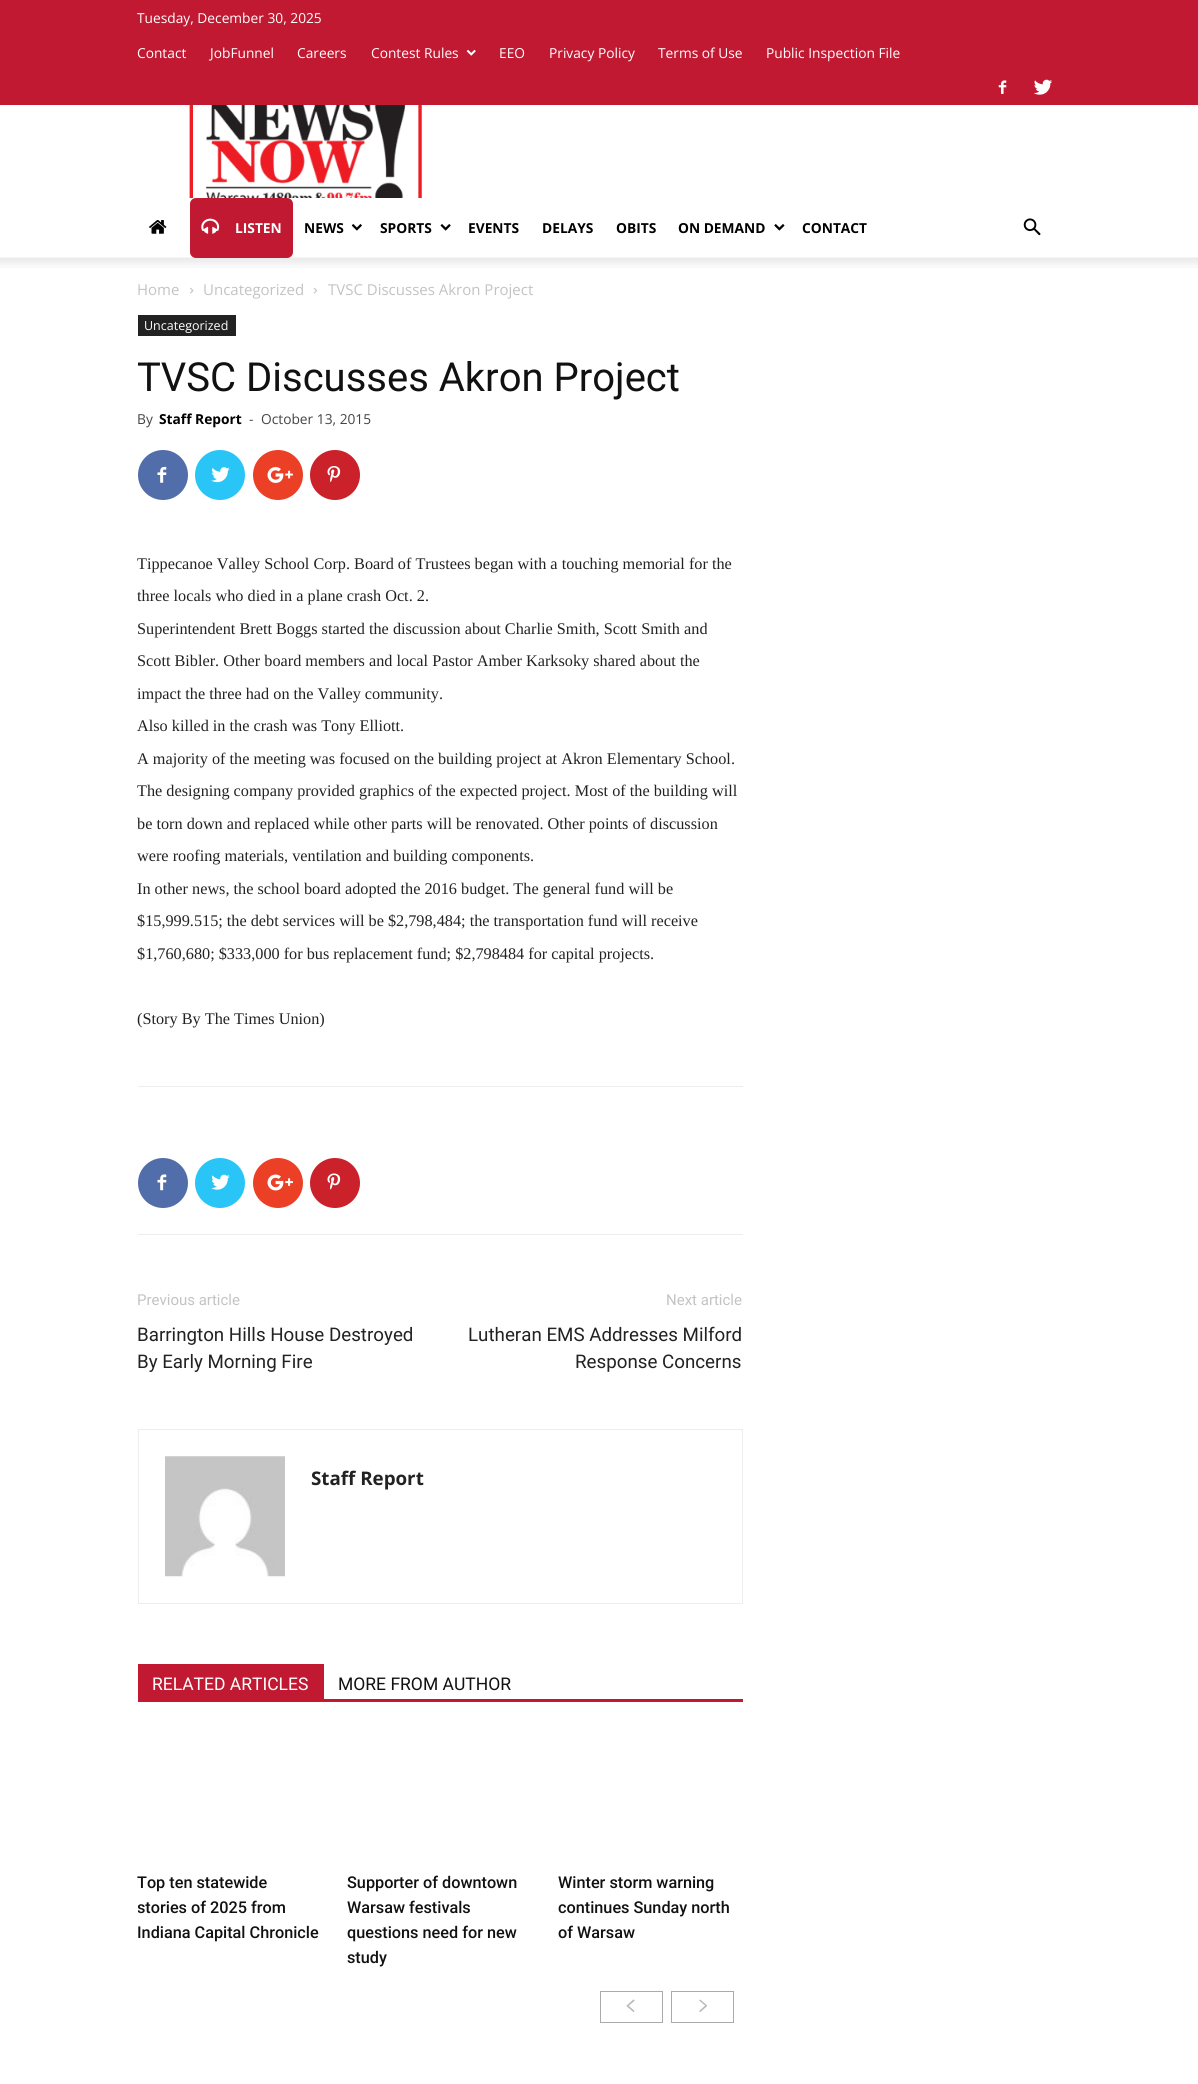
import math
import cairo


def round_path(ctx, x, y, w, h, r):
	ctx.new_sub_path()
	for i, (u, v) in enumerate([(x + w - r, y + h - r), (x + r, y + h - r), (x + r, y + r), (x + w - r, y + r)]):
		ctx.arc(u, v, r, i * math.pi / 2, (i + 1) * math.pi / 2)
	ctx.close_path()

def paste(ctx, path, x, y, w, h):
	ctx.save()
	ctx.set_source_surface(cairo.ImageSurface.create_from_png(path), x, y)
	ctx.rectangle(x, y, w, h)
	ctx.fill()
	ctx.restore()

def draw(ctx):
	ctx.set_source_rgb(1, 1, 1)
	ctx.paint()
	ctx.set_source_rgb(0.757, 0.098, 0.196)
	ctx.rectangle(0, 0, 1198, 105)
	ctx.fill()
	ctx.select_font_face('Open Sans')
	ctx.set_font_size(13.75)
	ctx.set_source_rgb(1, 1, 1)
	for x, y, s in [
		(137, 23, 'Tuesday, December 30, 2025'),
		(137, 58, 'Contact'),
		(210, 58, 'JobFunnel'),
		(297, 58, 'Careers'),
		(371, 58, 'Contest Rules'),
	]:
		ctx.move_to(x, y)
		ctx.show_text(s)
	paste(ctx, 'media/1.png', 466, 49, 10, 7)
	for x, y, s in [
		(499, 58, 'EEO'),
		(549, 58, 'Privacy Policy'),
		(658, 58, 'Terms of Use'),
		(766, 58, 'Public Inspection File'),
	]:
		ctx.move_to(x, y)
		ctx.show_text(s)
	paste(ctx, 'media/2.png', 998, 80, 9, 14)
	paste(ctx, 'media/3.png', 1034, 79, 18, 16)
	paste(ctx, 'media/4.png', 189, 105, 233, 93)
	paste(ctx, 'media/5.png', 149, 220, 18, 14)
	paste(ctx, 'media/11.png', 0, 257, 1198, 11)
	ctx.set_source_rgb(0.757, 0.098, 0.196)
	round_path(ctx, 190, 198, 103, 60, 6)
	ctx.fill()
	paste(ctx, 'media/6.png', 201, 218, 19, 16)
	ctx.select_font_face('Open Sans', cairo.FONT_SLANT_NORMAL, cairo.FONT_WEIGHT_BOLD)
	ctx.set_source_rgb(1, 1, 1)
	ctx.move_to(235, 233)
	ctx.show_text('LISTEN')
	ctx.set_source_rgb(0, 0, 0)
	ctx.move_to(304, 233)
	ctx.show_text('NEWS')
	paste(ctx, 'media/7.png', 351, 224, 11, 7)
	ctx.move_to(380, 233)
	ctx.show_text('SPORTS')
	paste(ctx, 'media/8.png', 440, 224, 11, 7)
	for x, y, s in [
		(468, 233, 'EVENTS'),
		(542, 233, 'DELAYS'),
		(616, 233, 'OBITS'),
		(678, 233, 'ON DEMAND'),
	]:
		ctx.move_to(x, y)
		ctx.show_text(s)
	paste(ctx, 'media/9.png', 774, 224, 11, 7)
	ctx.move_to(802, 233)
	ctx.show_text('CONTACT')
	paste(ctx, 'media/10.png', 1023, 218, 18, 18)
	ctx.select_font_face('Open Sans')
	ctx.set_font_size(15)
	ctx.set_source_rgb(0.765, 0.765, 0.765)
	ctx.move_to(137, 295)
	ctx.show_text('Home')
	paste(ctx, 'media/12.png', 190, 287, 4, 7)
	ctx.move_to(203, 295)
	ctx.show_text('Uncategorized')
	paste(ctx, 'media/13.png', 313, 287, 4, 7)
	ctx.move_to(328, 295)
	ctx.show_text('TVSC Discusses Akron Project')
	ctx.set_source_rgb(0.133, 0.133, 0.133)
	ctx.rectangle(138, 315, 98, 21)
	ctx.fill()
	ctx.set_font_size(12.5)
	ctx.set_source_rgb(1, 1, 1)
	ctx.move_to(144, 330)
	ctx.show_text('Uncategorized')
	ctx.select_font_face('Roboto')
	ctx.set_font_size(40)
	ctx.set_source_rgb(0.067, 0.067, 0.067)
	ctx.move_to(137, 391)
	ctx.show_text('TVSC Discusses Akron Project')
	ctx.select_font_face('Open Sans')
	ctx.set_font_size(13.75)
	ctx.set_source_rgb(0.267, 0.267, 0.267)
	ctx.move_to(137, 424)
	ctx.show_text('By')
	ctx.select_font_face('Open Sans', cairo.FONT_SLANT_NORMAL, cairo.FONT_WEIGHT_BOLD)
	ctx.set_source_rgb(0, 0, 0)
	ctx.move_to(159, 424)
	ctx.show_text('Staff Report')
	ctx.select_font_face('Open Sans')
	ctx.set_source_rgb(0.267, 0.267, 0.267)
	ctx.move_to(249, 424)
	ctx.show_text('-')
	ctx.move_to(261, 424)
	ctx.show_text('October 13, 2015')
	ctx.set_source_rgb(0.318, 0.431, 0.671)
	ctx.new_path()
	ctx.arc(163, 475, 25, 0, 2 * math.pi)
	ctx.fill()
	paste(ctx, 'media/14.png', 157, 466, 10, 17)
	ctx.set_source_rgb(0.161, 0.773, 0.965)
	ctx.arc(220, 475, 25, 0, 2 * math.pi)
	ctx.fill()
	paste(ctx, 'media/15.png', 211, 467, 19, 16)
	ctx.set_source_rgb(0.922, 0.251, 0.149)
	ctx.arc(278, 475, 25, 0, 2 * math.pi)
	ctx.fill()
	paste(ctx, 'media/16.png', 267, 467, 26, 16)
	ctx.set_source_rgb(0.792, 0.129, 0.165)
	ctx.arc(335, 475, 25, 0, 2 * math.pi)
	ctx.fill()
	paste(ctx, 'media/17.png', 327, 466, 14, 17)
	ctx.select_font_face('Liberation Serif')
	ctx.set_font_size(16.25)
	ctx.set_source_rgb(0.133, 0.133, 0.133)
	for x, y, s in [
		(137, 569, 'Tippecanoe Valley School Corp. Board of Trustees began with a touching memorial for the'),
		(137, 601, 'three locals who died in a plane crash Oct. 2.'),
		(137, 634, 'Superintendent Brett Boggs started the discussion about Charlie Smith, Scott Smith and'),
		(137, 666, 'Scott Bibler. Other board members and local Pastor Amber Karksoky shared about the'),
		(137, 699, 'impact the three had on the Valley community.'),
		(137, 731, 'Also killed in the crash was Tony Elliott.'),
		(137, 764, 'A majority of the meeting was focused on the building project at Akron Elementary School.'),
		(137, 796, 'The designing company provided graphics of the expected project. Most of the building will'),
		(137, 829, 'be torn down and replaced while other parts will be renovated. Other points of discussion'),
		(137, 861, 'were roofing materials, ventilation and building components.'),
		(137, 894, 'In other news, the school board adopted the 2016 budget. The general fund will be'),
		(137, 926, '$15,999.515; the debt services will be $2,798,484; the transportation fund will receive'),
		(137, 959, '$1,760,680; $333,000 for bus replacement fund; $2,798484 for capital projects.'),
		(137, 1024, '(Story By The Times Union)'),
	]:
		ctx.move_to(x, y)
		ctx.show_text(s)
	ctx.set_source_rgb(0.929, 0.929, 0.929)
	ctx.rectangle(138, 1086, 605, 1)
	ctx.fill()
	ctx.rectangle(138, 1234, 605, 1)
	ctx.fill()
	ctx.set_source_rgb(0.318, 0.431, 0.671)
	ctx.arc(163, 1183, 25, 0, 2 * math.pi)
	ctx.fill()
	paste(ctx, 'media/18.png', 157, 1174, 10, 17)
	ctx.set_source_rgb(0.161, 0.773, 0.965)
	ctx.arc(220, 1183, 25, 0, 2 * math.pi)
	ctx.fill()
	paste(ctx, 'media/19.png', 211, 1174, 19, 16)
	ctx.set_source_rgb(0.922, 0.251, 0.149)
	ctx.arc(278, 1183, 25, 0, 2 * math.pi)
	ctx.fill()
	paste(ctx, 'media/20.png', 267, 1174, 26, 17)
	ctx.set_source_rgb(0.792, 0.129, 0.165)
	ctx.arc(335, 1183, 25, 0, 2 * math.pi)
	ctx.fill()
	paste(ctx, 'media/21.png', 327, 1173, 14, 17)
	ctx.select_font_face('Roboto')
	ctx.set_font_size(15)
	ctx.set_source_rgb(0.765, 0.765, 0.765)
	ctx.move_to(137, 1305)
	ctx.show_text('Previous article')
	ctx.set_font_size(18.75)
	ctx.set_source_rgb(0.133, 0.133, 0.133)
	ctx.move_to(137, 1341)
	ctx.show_text('Barrington Hills House Destroyed')
	ctx.move_to(137, 1368)
	ctx.show_text('By Early Morning Fire')
	ctx.set_font_size(15)
	ctx.set_source_rgb(0.765, 0.765, 0.765)
	ctx.move_to(666, 1305)
	ctx.show_text('Next article')
	ctx.set_font_size(18.75)
	ctx.set_source_rgb(0.133, 0.133, 0.133)
	ctx.move_to(468, 1341)
	ctx.show_text('Lutheran EMS Addresses Milford')
	ctx.move_to(575, 1368)
	ctx.show_text('Response Concerns')
	ctx.rectangle(138.5, 1429.5, 604, 174)
	ctx.set_source_rgb(0.929, 0.929, 0.929)
	ctx.set_line_width(1)
	ctx.stroke()
	paste(ctx, 'media/22.png', 165, 1456, 120, 121)
	ctx.select_font_face('Open Sans', cairo.FONT_SLANT_NORMAL, cairo.FONT_WEIGHT_BOLD)
	ctx.set_source_rgb(0.133, 0.133, 0.133)
	ctx.move_to(311, 1485)
	ctx.show_text('Staff Report')
	ctx.set_source_rgb(0.757, 0.098, 0.196)
	ctx.rectangle(138, 1699, 605, 3)
	ctx.fill()
	ctx.rectangle(138, 1664, 186, 35)
	ctx.fill()
	ctx.select_font_face('Roboto')
	ctx.set_font_size(17.5)
	ctx.set_source_rgb(1, 1, 1)
	ctx.move_to(152, 1690)
	ctx.show_text('RELATED ARTICLES')
	ctx.set_source_rgb(0.067, 0.067, 0.067)
	ctx.move_to(338, 1690)
	ctx.show_text('MORE FROM AUTHOR')
	ctx.select_font_face('Roboto Medium')
	ctx.set_font_size(16.25)
	ctx.move_to(137, 1888)
	ctx.show_text('Top ten statewide')
	ctx.save()
	ctx.rectangle(138, 1664, 605, 359)
	ctx.clip()
	ctx.move_to(137, 1913)
	ctx.show_text('stories of 2025 from')
	ctx.restore()
	for x, y, s in [
		(137, 1938, 'Indiana Capital Chronicle'),
		(347, 1888, 'Supporter of downtown'),
		(347, 1913, 'Warsaw festivals'),
		(347, 1938, 'questions need for new'),
		(347, 1963, 'study'),
		(558, 1888, 'Winter storm warning'),
		(558, 1913, 'continues Sunday north'),
		(558, 1938, 'of Warsaw'),
	]:
		ctx.move_to(x, y)
		ctx.show_text(s)
	ctx.rectangle(600.5, 1991.5, 62, 31)
	ctx.set_source_rgb(0.671, 0.671, 0.671)
	ctx.stroke()
	paste(ctx, 'media/23.png', 626, 1999, 9, 13)
	ctx.rectangle(671.5, 1991.5, 62, 31)
	ctx.stroke()
	paste(ctx, 'media/24.png', 699, 1999, 8, 13)


surface = cairo.ImageSurface(cairo.FORMAT_RGB24, 1198, 2084)
ctx = cairo.Context(surface)
options = cairo.FontOptions()
options.set_hint_metrics(cairo.HINT_METRICS_OFF)
options.set_hint_style(cairo.HINT_STYLE_NONE)
ctx.set_font_options(options)
ctx.set_miter_limit(4)
draw(ctx)
surface.write_to_png('image.png')
